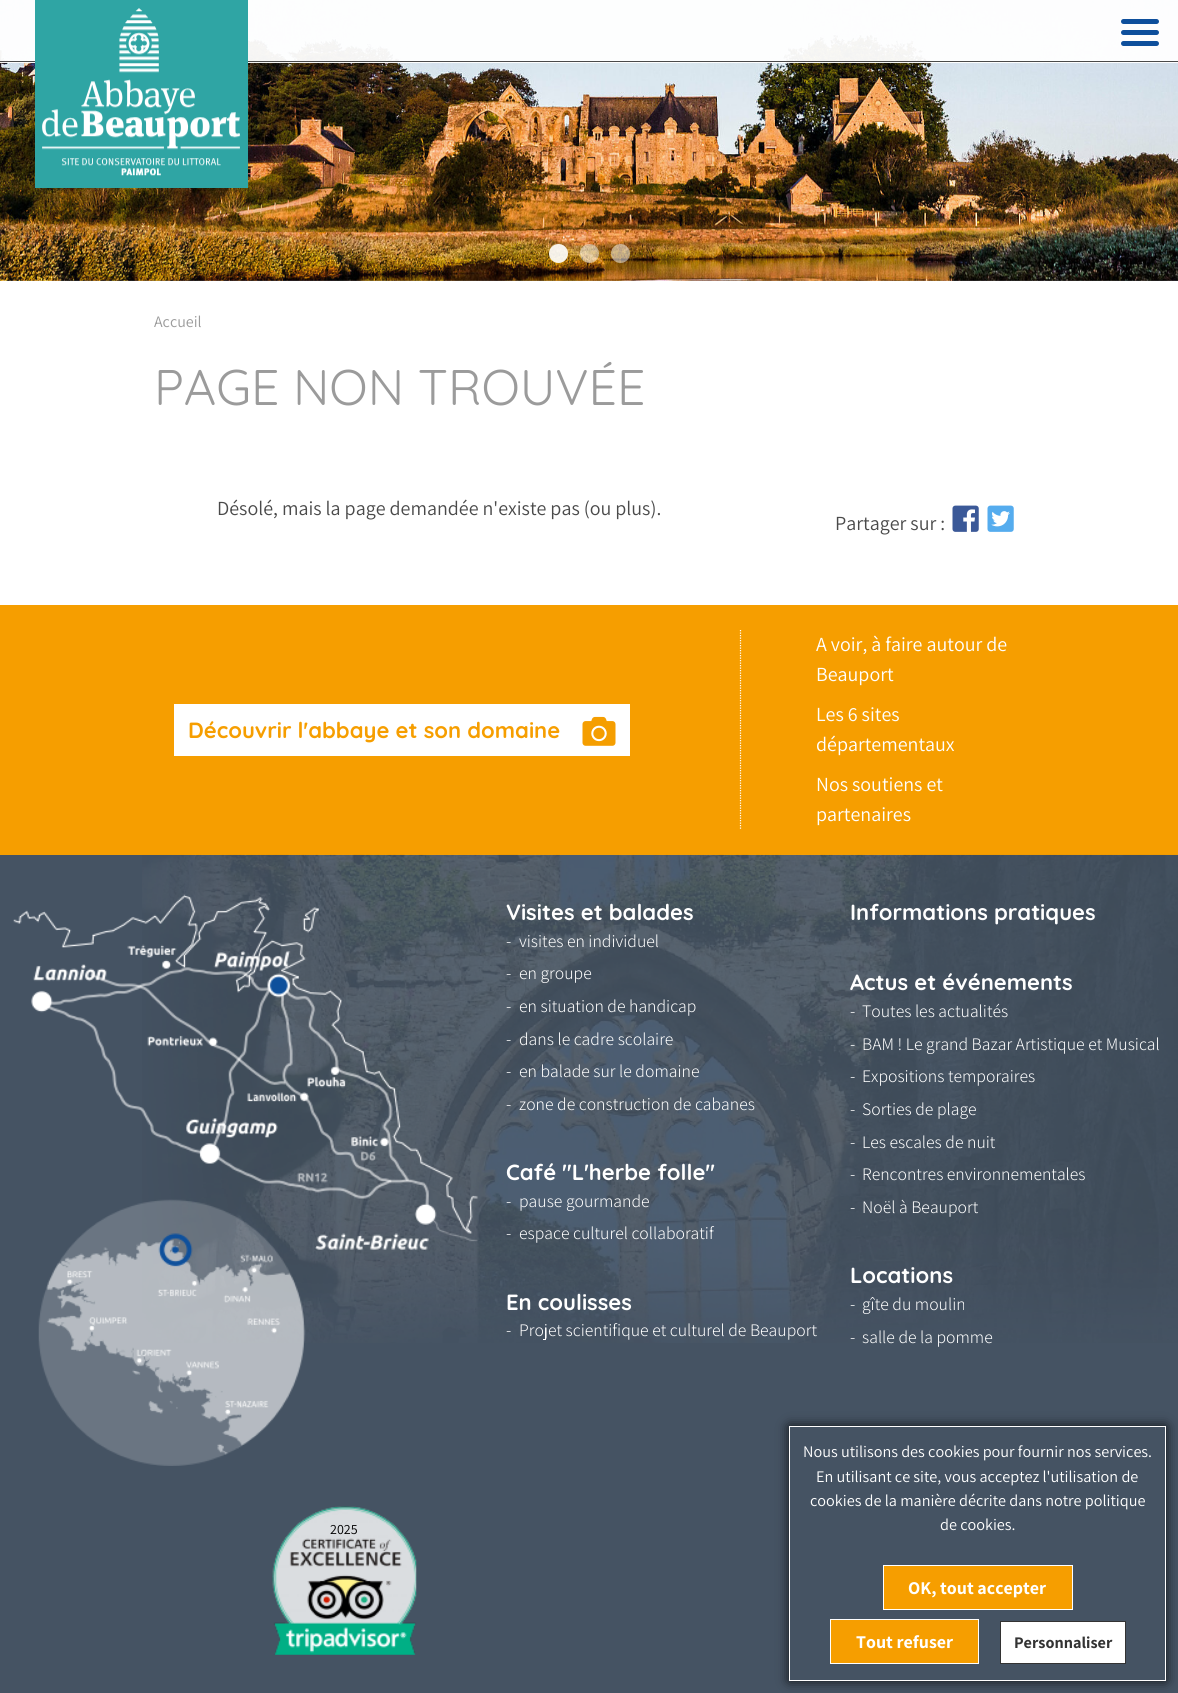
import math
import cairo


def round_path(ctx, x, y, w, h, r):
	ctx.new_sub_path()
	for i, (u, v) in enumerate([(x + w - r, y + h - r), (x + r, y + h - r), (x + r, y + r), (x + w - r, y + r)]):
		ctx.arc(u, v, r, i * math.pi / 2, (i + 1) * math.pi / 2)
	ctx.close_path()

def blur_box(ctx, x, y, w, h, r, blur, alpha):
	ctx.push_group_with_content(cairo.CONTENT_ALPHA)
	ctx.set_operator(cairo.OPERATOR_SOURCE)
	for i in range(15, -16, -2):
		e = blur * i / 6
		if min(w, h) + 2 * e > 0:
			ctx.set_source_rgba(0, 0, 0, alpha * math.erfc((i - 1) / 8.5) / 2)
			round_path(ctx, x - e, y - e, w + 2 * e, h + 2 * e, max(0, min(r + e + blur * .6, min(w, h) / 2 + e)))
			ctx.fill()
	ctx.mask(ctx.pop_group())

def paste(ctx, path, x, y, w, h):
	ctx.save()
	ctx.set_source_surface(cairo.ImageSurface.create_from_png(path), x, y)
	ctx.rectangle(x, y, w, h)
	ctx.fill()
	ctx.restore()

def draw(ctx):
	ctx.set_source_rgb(1, 1, 1)
	ctx.paint()
	paste(ctx, 'media/1.png', 0, 0, 1178, 281)
	ctx.set_source_rgba(1, 1, 1, 0.9)
	ctx.arc(558.5, 253.5, 9.5, 0, 2 * math.pi)
	ctx.fill()
	ctx.set_source_rgba(1, 1, 1, 0.5)
	ctx.arc(589.5, 253.5, 9.5, 0, 2 * math.pi)
	ctx.fill()
	ctx.arc(620.5, 253.5, 9.5, 0, 2 * math.pi)
	ctx.fill()
	ctx.set_source_rgba(1, 1, 1, 0.95)
	ctx.rectangle(0, 0, 1178, 63)
	ctx.fill()
	ctx.set_source_rgb(0.29, 0.29, 0.29)
	ctx.rectangle(0, 61, 1178, 1)
	ctx.fill()
	ctx.set_source_rgb(0.184, 0.647, 0.643)
	ctx.rectangle(35, 0, 213, 188)
	ctx.fill()
	paste(ctx, 'media/2.png', 42, 8, 199, 168)
	ctx.set_source_rgb(0.055, 0.31, 0.612)
	round_path(ctx, 1121, 19, 38, 5, 2.5)
	ctx.fill()
	round_path(ctx, 1121, 30, 38, 5, 2.5)
	ctx.fill()
	round_path(ctx, 1121, 41, 38, 5, 2.5)
	ctx.fill()
	ctx.select_font_face('Assistant ExtraLight')
	ctx.set_font_size(16)
	ctx.set_source_rgb(0.608, 0.608, 0.608)
	ctx.move_to(154, 327)
	ctx.show_text('Accueil')
	ctx.select_font_face('Quicksand Light')
	ctx.set_font_size(50)
	ctx.move_to(154, 405)
	ctx.show_text('PAGE NON TROUVÉE')
	ctx.select_font_face('Assistant ExtraLight')
	ctx.set_font_size(20)
	ctx.set_source_rgb(0.29, 0.29, 0.29)
	ctx.move_to(217, 515)
	ctx.show_text('Désolé, mais la page demandée n\'existe pas (ou plus).')
	ctx.move_to(835, 530)
	ctx.show_text('Partager sur :')
	paste(ctx, 'media/3.png', 952, 505, 27, 27)
	paste(ctx, 'media/4.png', 987, 505, 27, 27)
	ctx.set_source_rgb(0.961, 0.62, 0)
	ctx.rectangle(0, 605, 1178, 250)
	ctx.fill()
	ctx.set_source_rgb(1, 1, 1)
	ctx.rectangle(174, 704, 456, 52)
	ctx.fill()
	ctx.select_font_face('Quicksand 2 Light')
	ctx.set_font_size(22)
	ctx.set_source_rgb(0.961, 0.62, 0)
	ctx.move_to(188, 738)
	ctx.show_text('Découvrir l\'abbaye et son domaine')
	paste(ctx, 'media/5.png', 582, 716, 34, 30)
	ctx.new_path()
	ctx.move_to(740.5, 630)
	ctx.line_to(740.5, 830)
	ctx.set_source_rgb(1, 1, 1)
	ctx.set_line_width(1.2)
	ctx.set_dash([1.25, 1.25])
	ctx.stroke()
	ctx.select_font_face('Assistant ExtraLight')
	ctx.set_font_size(20)
	for x, y, s in [
		(816, 651, 'A voir, à faire autour de'),
		(816, 681, 'Beauport'),
		(816, 721, 'Les 6 sites'),
		(816, 751, 'départementaux'),
		(816, 791, 'Nos soutiens et'),
		(816, 821, 'partenaires'),
	]:
		ctx.move_to(x, y)
		ctx.show_text(s)
	ctx.set_source_rgb(0.271, 0.325, 0.388)
	ctx.rectangle(0, 855, 1178, 838)
	ctx.fill()
	paste(ctx, 'media/6.png', 142, 854, 1036, 489)
	paste(ctx, 'media/7.png', 13, 894, 465, 572)
	ctx.select_font_face('Quicksand 2 Light')
	ctx.set_font_size(22)
	ctx.set_source_rgb(1, 1, 1)
	ctx.move_to(506, 920)
	ctx.show_text('Visites et balades')
	ctx.select_font_face('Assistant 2 ExtraLight')
	ctx.set_font_size(17.6)
	for x, y, s in [
		(506, 947, '-'),
		(519, 947, 'visites en individuel'),
		(506, 979, '-'),
		(519, 979, 'en groupe'),
		(506, 1012, '-'),
		(519, 1012, 'en situation de handicap'),
		(506, 1045, '-'),
		(519, 1045, 'dans le cadre scolaire'),
		(506, 1077, '-'),
		(519, 1077, 'en balade sur le domaine'),
		(506, 1110, '-'),
		(519, 1110, 'zone de construction de cabanes'),
	]:
		ctx.move_to(x, y)
		ctx.show_text(s)
	ctx.select_font_face('Quicksand 2 Light')
	ctx.set_font_size(22)
	ctx.move_to(506, 1180)
	ctx.show_text('Café "L\'herbe folle"')
	ctx.select_font_face('Assistant 2 ExtraLight')
	ctx.set_font_size(17.6)
	for x, y, s in [
		(506, 1207, '-'),
		(519, 1207, 'pause gourmande'),
		(506, 1239, '-'),
		(519, 1239, 'espace culturel collaboratif'),
	]:
		ctx.move_to(x, y)
		ctx.show_text(s)
	ctx.select_font_face('Quicksand 2 Light')
	ctx.set_font_size(22)
	ctx.move_to(506, 1310)
	ctx.show_text('En coulisses')
	ctx.select_font_face('Assistant 2 ExtraLight')
	ctx.set_font_size(17.6)
	ctx.move_to(506, 1336)
	ctx.show_text('-')
	ctx.move_to(519, 1336)
	ctx.show_text('Projet scientifique et culturel de Beauport')
	ctx.select_font_face('Quicksand 2 Light')
	ctx.set_font_size(22)
	ctx.move_to(850, 920)
	ctx.show_text('Informations pratiques')
	ctx.move_to(850, 990)
	ctx.show_text('Actus et événements')
	ctx.select_font_face('Assistant 2 ExtraLight')
	ctx.set_font_size(17.6)
	for x, y, s in [
		(850, 1017, '-'),
		(862, 1017, 'Toutes les actualités'),
		(850, 1050, '-'),
		(862, 1050, 'BAM ! Le grand Bazar Artistique et Musical'),
		(850, 1082, '-'),
		(862, 1082, 'Expositions temporaires'),
		(850, 1115, '-'),
		(862, 1115, 'Sorties de plage'),
		(850, 1148, '-'),
		(862, 1148, 'Les escales de nuit'),
		(850, 1180, '-'),
		(862, 1180, 'Rencontres environnementales'),
		(850, 1213, '-'),
		(862, 1213, 'Noël à Beauport'),
	]:
		ctx.move_to(x, y)
		ctx.show_text(s)
	ctx.select_font_face('Quicksand 2 Light')
	ctx.set_font_size(22)
	ctx.move_to(850, 1283)
	ctx.show_text('Locations')
	ctx.select_font_face('Assistant 2 ExtraLight')
	ctx.set_font_size(17.6)
	for x, y, s in [
		(850, 1310, '-'),
		(862, 1310, 'gîte du moulin'),
		(850, 1343, '-'),
		(862, 1343, 'salle de la pomme'),
	]:
		ctx.move_to(x, y)
		ctx.show_text(s)
	paste(ctx, 'media/8.png', 272, 1506, 145, 149)
	ctx.select_font_face('Assistant ExtraLight')
	ctx.set_font_size(14)
	ctx.set_source_rgb(0, 0, 0)
	ctx.move_to(330, 1534)
	ctx.show_text('2025')
	ctx.set_source_rgb(0, 0, 0)
	blur_box(ctx, 789, 1426, 377, 255, 0, 6, 0.8)
	ctx.set_source_rgb(0.271, 0.325, 0.388)
	ctx.rectangle(789.5, 1426.5, 376, 254)
	ctx.fill_preserve()
	ctx.set_source_rgb(1, 1, 1)
	ctx.set_line_width(1)
	ctx.set_dash([])
	ctx.stroke()
	ctx.set_font_size(16.2)
	for x, y, s in [
		(803, 1457, 'Nous utilisons des cookies pour fournir nos services.'),
		(816, 1482, 'En utilisant ce site, vous acceptez l\'utilisation de'),
		(810, 1506, 'cookies de la manière décrite dans notre politique'),
		(940, 1530, 'de cookies.'),
	]:
		ctx.move_to(x, y)
		ctx.show_text(s)
	ctx.set_source_rgb(0.961, 0.62, 0)
	ctx.rectangle(883.5, 1565.5, 189, 44)
	ctx.fill_preserve()
	ctx.set_source_rgb(1, 1, 1)
	ctx.stroke()
	ctx.select_font_face('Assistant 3 ExtraLight')
	ctx.set_font_size(18)
	ctx.move_to(908, 1594)
	ctx.show_text('OK, tout accepter')
	ctx.set_source_rgb(0.961, 0.62, 0)
	ctx.rectangle(830.5, 1619.5, 148, 44)
	ctx.fill_preserve()
	ctx.set_source_rgb(1, 1, 1)
	ctx.stroke()
	ctx.move_to(856, 1648)
	ctx.show_text('Tout refuser')
	ctx.rectangle(1000.5, 1621.5, 125, 42)
	ctx.fill_preserve()
	ctx.set_source_rgb(0.2, 0.2, 0.2)
	ctx.stroke()
	ctx.set_font_size(16.25)
	ctx.move_to(1014, 1648)
	ctx.show_text('Personnaliser')


surface = cairo.ImageSurface(cairo.FORMAT_RGB24, 1178, 1693)
ctx = cairo.Context(surface)
options = cairo.FontOptions()
options.set_hint_metrics(cairo.HINT_METRICS_OFF)
options.set_hint_style(cairo.HINT_STYLE_NONE)
ctx.set_font_options(options)
ctx.set_miter_limit(4)
draw(ctx)
surface.write_to_png('image.png')
